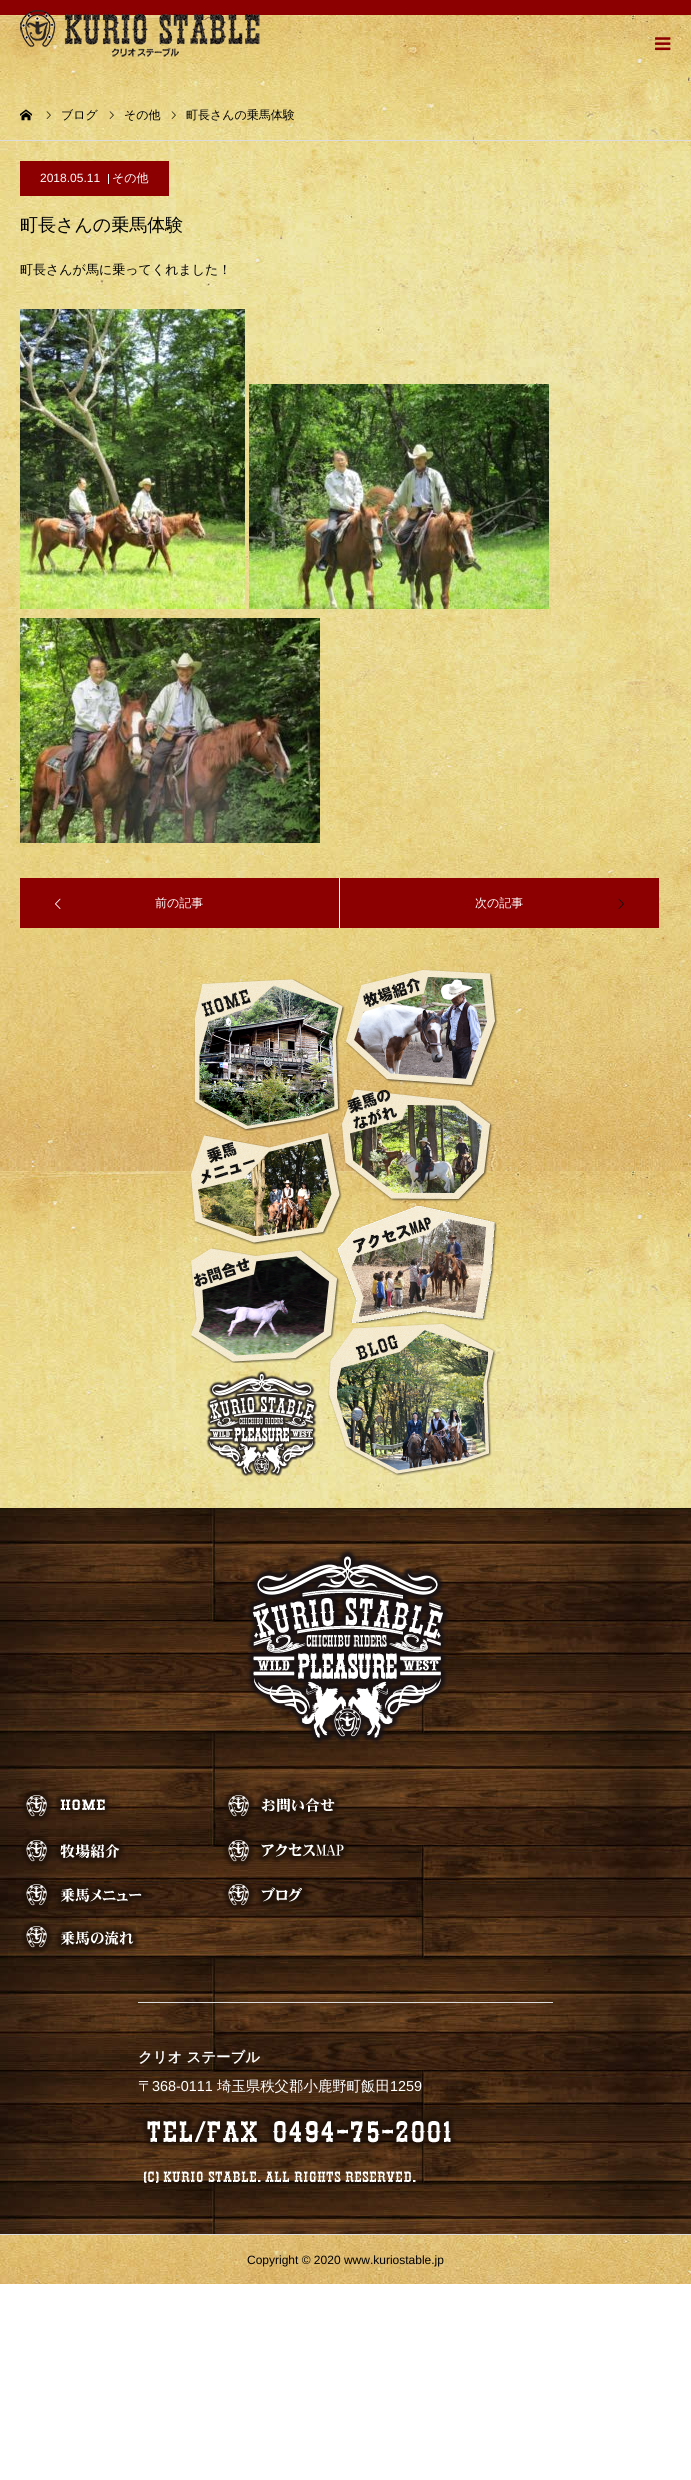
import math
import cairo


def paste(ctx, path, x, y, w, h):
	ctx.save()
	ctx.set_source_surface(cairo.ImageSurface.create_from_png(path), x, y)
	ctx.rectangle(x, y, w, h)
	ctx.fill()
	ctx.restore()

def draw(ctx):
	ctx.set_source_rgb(1, 1, 1)
	ctx.paint()
	paste(ctx, 'media/1.png', 0, 15, 691, 2269)
	ctx.set_source_rgb(0.553, 0, 0.004)
	ctx.rectangle(0, 0, 691, 15)
	ctx.fill()
	paste(ctx, 'media/2.png', 20, 10, 240, 47)
	paste(ctx, 'media/3.png', 655, 37, 16, 14)
	ctx.set_source_rgb(0.867, 0.867, 0.867)
	ctx.rectangle(0, 140, 691, 1)
	ctx.fill()
	paste(ctx, 'media/4.png', 20, 109, 12, 12)
	paste(ctx, 'media/5.png', 46, 111, 5, 8)
	ctx.select_font_face('WenQuanYi Zen Hei Medium')
	ctx.set_font_size(12)
	ctx.set_source_rgb(0, 0, 0)
	ctx.move_to(61, 119)
	ctx.show_text('ブログ')
	paste(ctx, 'media/6.png', 109, 111, 5, 8)
	ctx.move_to(124, 119)
	ctx.show_text('その他')
	paste(ctx, 'media/7.png', 171, 111, 5, 8)
	ctx.move_to(186, 119)
	ctx.show_text('町長さんの乗馬体験')
	ctx.set_source_rgb(0.553, 0, 0.004)
	ctx.rectangle(20, 161, 149, 35)
	ctx.fill()
	ctx.select_font_face('Liberation Sans')
	ctx.set_source_rgb(1, 1, 1)
	ctx.move_to(40, 182)
	ctx.show_text('2018.05.11')
	ctx.rectangle(108, 174, 1, 10)
	ctx.fill()
	ctx.select_font_face('WenQuanYi Zen Hei Medium')
	ctx.move_to(112, 182)
	ctx.show_text('その他')
	ctx.set_font_size(18)
	ctx.set_source_rgb(0, 0, 0)
	ctx.move_to(20, 231)
	ctx.show_text('町長さんの乗馬体験')
	ctx.set_font_size(13)
	ctx.move_to(20, 274)
	ctx.show_text('町長さんが馬に乗ってくれました！')
	paste(ctx, 'media/8.png', 20, 309, 225, 300)
	paste(ctx, 'media/9.png', 249, 384, 300, 225)
	paste(ctx, 'media/10.png', 20, 618, 300, 225)
	ctx.set_source_rgb(1, 1, 1)
	ctx.rectangle(339, 878, 1, 50)
	ctx.fill()
	ctx.set_source_rgb(0.553, 0, 0.004)
	ctx.rectangle(20, 878, 319, 50)
	ctx.fill()
	paste(ctx, 'media/11.png', 55, 898, 6, 11)
	ctx.set_font_size(12)
	ctx.set_source_rgb(1, 1, 1)
	ctx.move_to(155, 907)
	ctx.show_text('前の記事')
	ctx.set_source_rgb(0.553, 0, 0.004)
	ctx.rectangle(340, 878, 319, 50)
	ctx.fill()
	ctx.set_source_rgb(1, 1, 1)
	ctx.move_to(475, 907)
	ctx.show_text('次の記事')
	paste(ctx, 'media/12.png', 618, 898, 6, 11)
	paste(ctx, 'media/13.png', 194, 979, 147, 154)
	paste(ctx, 'media/14.png', 341, 969, 157, 118)
	paste(ctx, 'media/15.png', 191, 1133, 150, 110)
	paste(ctx, 'media/16.png', 341, 1087, 152, 115)
	paste(ctx, 'media/20.png', 328, 1323, 168, 153)
	paste(ctx, 'media/17.png', 191, 1243, 150, 120)
	paste(ctx, 'media/18.png', 341, 1205, 156, 118)
	paste(ctx, 'media/19.png', 206, 1371, 112, 106)
	paste(ctx, 'media/21.png', 0, 1508, 691, 726)
	paste(ctx, 'media/22.png', 247, 1550, 202, 194)
	paste(ctx, 'media/23.png', 20, 1789, 91, 32)
	paste(ctx, 'media/24.png', 21, 1832, 104, 34)
	paste(ctx, 'media/25.png', 21, 1877, 126, 34)
	paste(ctx, 'media/26.png', 21, 1922, 118, 31)
	paste(ctx, 'media/27.png', 222, 1789, 118, 32)
	paste(ctx, 'media/28.png', 222, 1836, 127, 30)
	paste(ctx, 'media/29.png', 222, 1877, 85, 34)
	ctx.set_source_rgb(0.867, 0.867, 0.867)
	ctx.rectangle(138, 2002, 415, 1)
	ctx.fill()
	ctx.select_font_face('WenQuanYi Zen Hei', cairo.FONT_SLANT_NORMAL, cairo.FONT_WEIGHT_BOLD)
	ctx.set_font_size(14.4)
	ctx.set_source_rgb(1, 1, 1)
	ctx.move_to(138, 2062)
	ctx.show_text('クリオ ステーブル')
	ctx.select_font_face('WenQuanYi Zen Hei Medium')
	ctx.move_to(138, 2091)
	ctx.show_text('〒')
	ctx.select_font_face('Liberation Sans')
	ctx.move_to(152, 2091)
	ctx.show_text('368-0111')
	ctx.select_font_face('WenQuanYi Zen Hei Medium')
	ctx.move_to(217, 2091)
	ctx.show_text('埼玉県秩父郡小鹿野町飯田')
	ctx.select_font_face('Liberation Sans')
	ctx.move_to(390, 2091)
	ctx.show_text('1259')
	paste(ctx, 'media/30.png', 141, 2115, 316, 34)
	paste(ctx, 'media/31.png', 143, 2171, 273, 12)
	ctx.set_source_rgb(0.867, 0.867, 0.867)
	ctx.rectangle(0, 2234, 691, 1)
	ctx.fill()
	ctx.set_font_size(12)
	ctx.set_source_rgb(0, 0, 0)
	ctx.move_to(247, 2264)
	ctx.show_text('Copyright © 2020 www.kuriostable.jp')


surface = cairo.ImageSurface(cairo.FORMAT_RGB24, 691, 2480)
ctx = cairo.Context(surface)
options = cairo.FontOptions()
options.set_hint_metrics(cairo.HINT_METRICS_OFF)
options.set_hint_style(cairo.HINT_STYLE_NONE)
ctx.set_font_options(options)
ctx.set_miter_limit(4)
draw(ctx)
surface.write_to_png('image.png')
